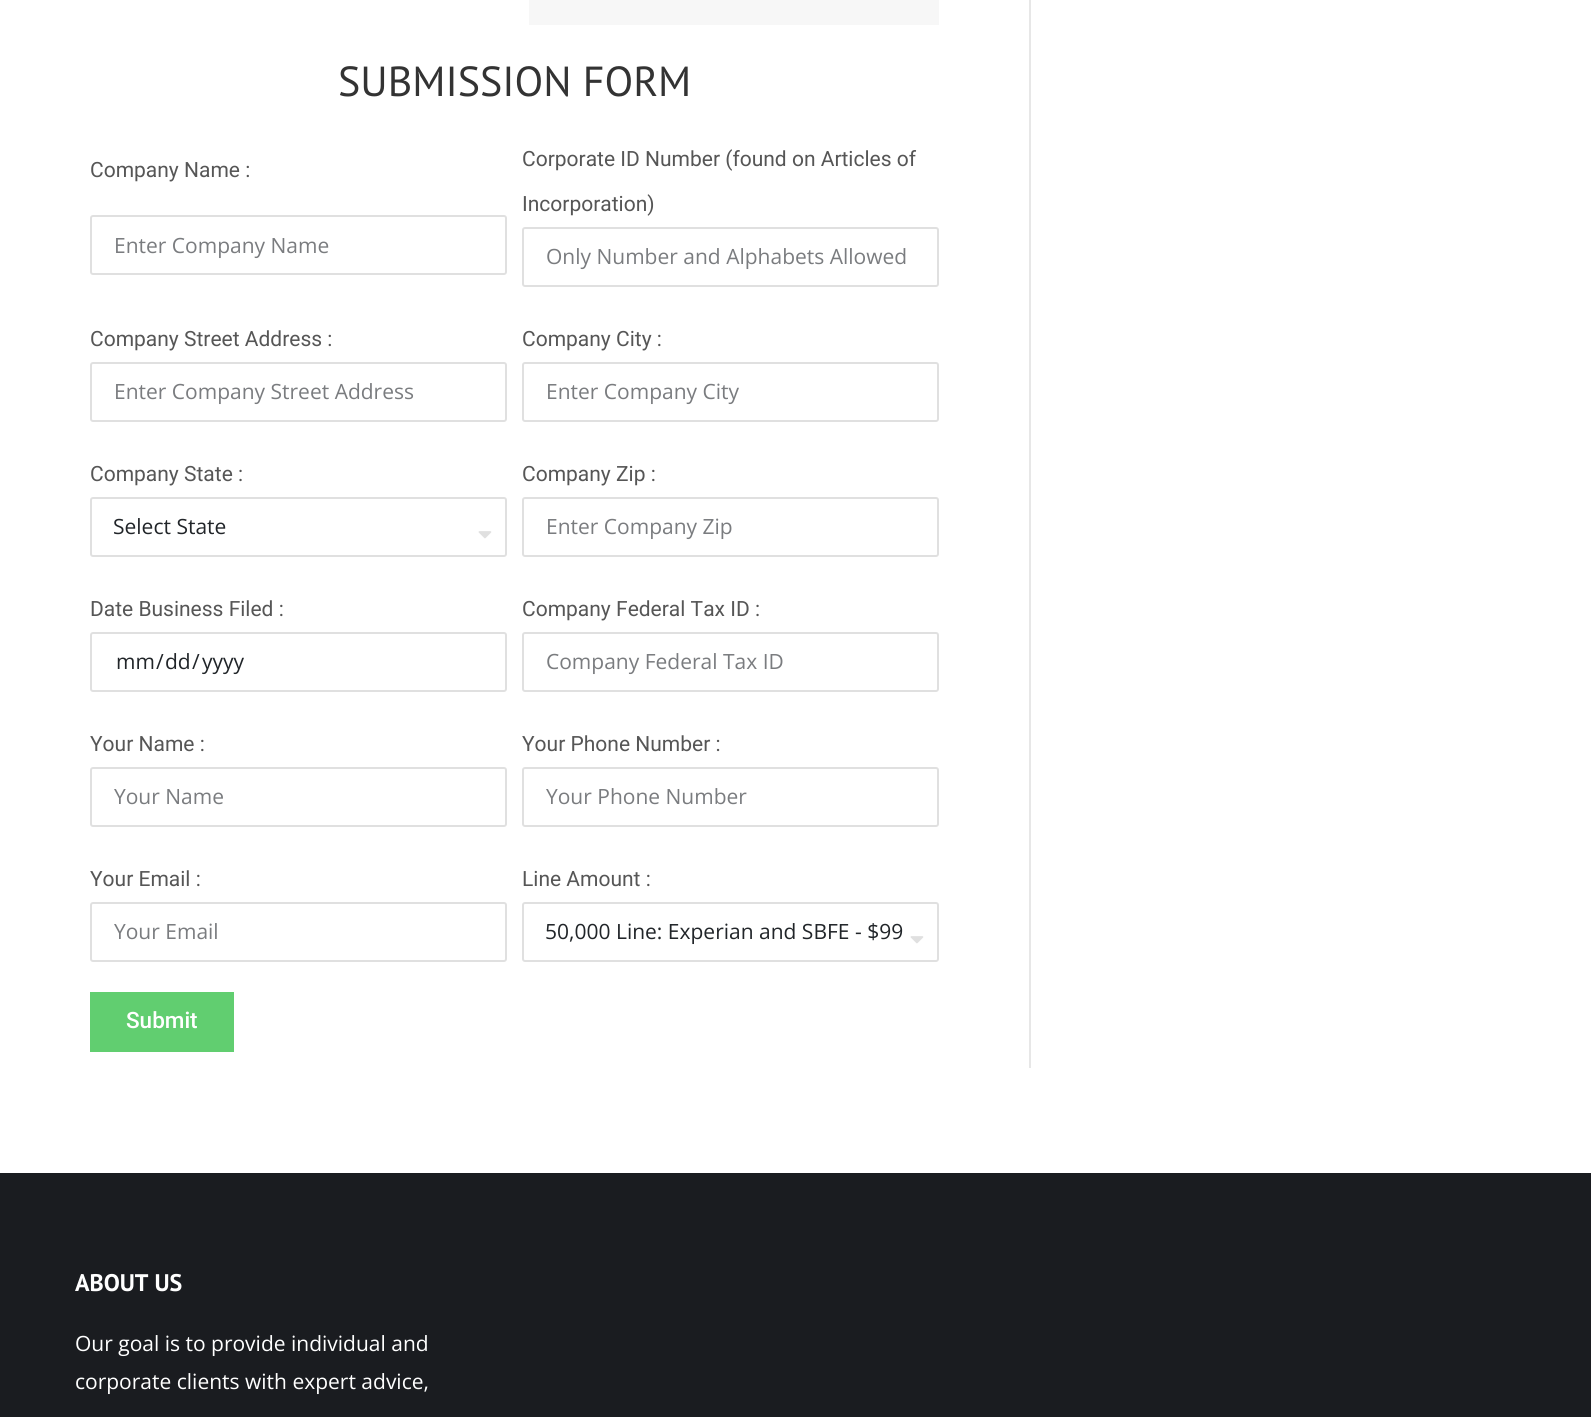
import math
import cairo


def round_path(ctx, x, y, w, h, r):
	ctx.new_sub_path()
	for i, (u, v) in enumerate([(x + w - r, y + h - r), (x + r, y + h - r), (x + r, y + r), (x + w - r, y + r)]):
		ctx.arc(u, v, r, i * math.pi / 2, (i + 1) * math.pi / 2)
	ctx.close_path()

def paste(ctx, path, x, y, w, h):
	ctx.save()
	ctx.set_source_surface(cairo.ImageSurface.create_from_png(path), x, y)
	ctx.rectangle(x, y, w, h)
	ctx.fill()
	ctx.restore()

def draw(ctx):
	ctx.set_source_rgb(1, 1, 1)
	ctx.paint()
	ctx.set_source_rgb(0.965, 0.965, 0.965)
	ctx.rectangle(529, 0, 410, 25)
	ctx.fill()
	ctx.select_font_face('PT Sans')
	ctx.set_font_size(42)
	ctx.set_source_rgb(0.2, 0.2, 0.2)
	ctx.move_to(338, 96)
	ctx.show_text('SUBMISSION FORM')
	ctx.select_font_face('Roboto')
	ctx.set_font_size(21)
	ctx.set_source_rgb(0.337, 0.337, 0.337)
	ctx.move_to(90, 177)
	ctx.show_text('Company Name :')
	round_path(ctx, 91, 216, 415, 58, 2)
	ctx.set_source_rgb(0.878, 0.878, 0.878)
	ctx.stroke()
	ctx.select_font_face('Open Sans')
	ctx.set_source_rgb(0.478, 0.486, 0.498)
	ctx.move_to(114, 253)
	ctx.show_text('Enter Company Name')
	ctx.select_font_face('Roboto')
	ctx.set_source_rgb(0.337, 0.337, 0.337)
	ctx.move_to(522, 166)
	ctx.show_text('Corporate ID Number (found on Articles of')
	ctx.move_to(522, 211)
	ctx.show_text('Incorporation)')
	round_path(ctx, 523, 228, 415, 58, 2)
	ctx.set_source_rgb(0.878, 0.878, 0.878)
	ctx.stroke()
	ctx.select_font_face('Open Sans')
	ctx.set_source_rgb(0.478, 0.486, 0.498)
	ctx.move_to(546, 264)
	ctx.show_text('Only Number and Alphabets Allowed')
	ctx.select_font_face('Roboto')
	ctx.set_source_rgb(0.337, 0.337, 0.337)
	ctx.move_to(90, 346)
	ctx.show_text('Company Street Address :')
	round_path(ctx, 91, 363, 415, 58, 2)
	ctx.set_source_rgb(0.878, 0.878, 0.878)
	ctx.stroke()
	ctx.select_font_face('Open Sans')
	ctx.set_source_rgb(0.478, 0.486, 0.498)
	ctx.move_to(114, 399)
	ctx.show_text('Enter Company Street Address')
	ctx.select_font_face('Roboto')
	ctx.set_source_rgb(0.337, 0.337, 0.337)
	ctx.move_to(522, 346)
	ctx.show_text('Company City :')
	round_path(ctx, 523, 363, 415, 58, 2)
	ctx.set_source_rgb(0.878, 0.878, 0.878)
	ctx.stroke()
	ctx.select_font_face('Open Sans')
	ctx.set_source_rgb(0.478, 0.486, 0.498)
	ctx.move_to(546, 399)
	ctx.show_text('Enter Company City')
	ctx.select_font_face('Roboto')
	ctx.set_source_rgb(0.337, 0.337, 0.337)
	ctx.move_to(90, 481)
	ctx.show_text('Company State :')
	round_path(ctx, 91, 498, 415, 58, 2)
	ctx.set_source_rgb(0.878, 0.878, 0.878)
	ctx.stroke()
	ctx.select_font_face('Open Sans')
	ctx.set_source_rgb(0.129, 0.145, 0.161)
	ctx.move_to(113, 534)
	ctx.show_text('Select State')
	paste(ctx, 'media/1.png', 478, 531, 14, 8)
	ctx.select_font_face('Roboto')
	ctx.set_source_rgb(0.337, 0.337, 0.337)
	ctx.move_to(522, 481)
	ctx.show_text('Company Zip :')
	round_path(ctx, 523, 498, 415, 58, 2)
	ctx.set_source_rgb(0.878, 0.878, 0.878)
	ctx.stroke()
	ctx.select_font_face('Open Sans')
	ctx.set_source_rgb(0.478, 0.486, 0.498)
	ctx.move_to(546, 534)
	ctx.show_text('Enter Company Zip')
	ctx.select_font_face('Roboto')
	ctx.set_source_rgb(0.337, 0.337, 0.337)
	ctx.move_to(90, 616)
	ctx.show_text('Date Business Filed :')
	round_path(ctx, 91, 633, 415, 58, 2)
	ctx.set_source_rgb(0.878, 0.878, 0.878)
	ctx.stroke()
	ctx.select_font_face('Open Sans')
	ctx.set_source_rgb(0.129, 0.145, 0.161)
	for x, y, s in [
		(116, 669, 'mm'),
		(156, 669, '/'),
		(165, 669, 'dd'),
		(192, 669, '/'),
		(202, 669, 'yyyy'),
	]:
		ctx.move_to(x, y)
		ctx.show_text(s)
	ctx.select_font_face('Roboto')
	ctx.set_source_rgb(0.337, 0.337, 0.337)
	ctx.move_to(522, 616)
	ctx.show_text('Company Federal Tax ID :')
	round_path(ctx, 523, 633, 415, 58, 2)
	ctx.set_source_rgb(0.878, 0.878, 0.878)
	ctx.stroke()
	ctx.select_font_face('Open Sans')
	ctx.set_source_rgb(0.478, 0.486, 0.498)
	ctx.move_to(546, 669)
	ctx.show_text('Company Federal Tax ID')
	ctx.select_font_face('Roboto')
	ctx.set_source_rgb(0.337, 0.337, 0.337)
	ctx.move_to(90, 751)
	ctx.show_text('Your Name :')
	round_path(ctx, 91, 768, 415, 58, 2)
	ctx.set_source_rgb(0.878, 0.878, 0.878)
	ctx.stroke()
	ctx.select_font_face('Open Sans')
	ctx.set_source_rgb(0.478, 0.486, 0.498)
	ctx.move_to(114, 804)
	ctx.show_text('Your Name')
	ctx.select_font_face('Roboto')
	ctx.set_source_rgb(0.337, 0.337, 0.337)
	ctx.move_to(522, 751)
	ctx.show_text('Your Phone Number :')
	round_path(ctx, 523, 768, 415, 58, 2)
	ctx.set_source_rgb(0.878, 0.878, 0.878)
	ctx.stroke()
	ctx.select_font_face('Open Sans')
	ctx.set_source_rgb(0.478, 0.486, 0.498)
	ctx.move_to(546, 804)
	ctx.show_text('Your Phone Number')
	ctx.select_font_face('Roboto')
	ctx.set_source_rgb(0.337, 0.337, 0.337)
	ctx.move_to(90, 886)
	ctx.show_text('Your Email :')
	round_path(ctx, 91, 903, 415, 58, 2)
	ctx.set_source_rgb(0.878, 0.878, 0.878)
	ctx.stroke()
	ctx.select_font_face('Open Sans')
	ctx.set_source_rgb(0.478, 0.486, 0.498)
	ctx.move_to(114, 939)
	ctx.show_text('Your Email')
	ctx.select_font_face('Roboto')
	ctx.set_source_rgb(0.337, 0.337, 0.337)
	ctx.move_to(522, 886)
	ctx.show_text('Line Amount :')
	round_path(ctx, 523, 903, 415, 58, 2)
	ctx.set_source_rgb(0.878, 0.878, 0.878)
	ctx.stroke()
	ctx.select_font_face('Open Sans')
	ctx.set_source_rgb(0.129, 0.145, 0.161)
	ctx.move_to(545, 939)
	ctx.show_text('50,000 Line: Experian and SBFE - $99')
	paste(ctx, 'media/1.png', 910, 936, 14, 8)
	ctx.set_source_rgb(0.38, 0.808, 0.439)
	ctx.rectangle(90, 992, 144, 60)
	ctx.fill()
	ctx.select_font_face('Roboto Medium')
	ctx.set_font_size(22.5)
	ctx.set_source_rgb(1, 1, 1)
	ctx.move_to(126, 1028)
	ctx.show_text('Submit')
	ctx.set_source_rgb(0.906, 0.906, 0.906)
	ctx.rectangle(1029, 0, 2, 1068)
	ctx.fill()
	ctx.set_source_rgb(0.102, 0.11, 0.125)
	ctx.rectangle(0, 1173, 1591, 244)
	ctx.fill()
	ctx.select_font_face('PT Sans', cairo.FONT_SLANT_NORMAL, cairo.FONT_WEIGHT_BOLD)
	ctx.set_font_size(24)
	ctx.set_source_rgb(1, 1, 1)
	ctx.move_to(75, 1291)
	ctx.show_text('ABOUT US')
	ctx.select_font_face('Open Sans')
	ctx.set_font_size(21)
	ctx.move_to(75, 1351)
	ctx.show_text('Our goal is to provide individual and')
	ctx.move_to(75, 1389)
	ctx.show_text('corporate clients with expert advice,')


surface = cairo.ImageSurface(cairo.FORMAT_RGB24, 1591, 1417)
ctx = cairo.Context(surface)
options = cairo.FontOptions()
options.set_hint_metrics(cairo.HINT_METRICS_OFF)
options.set_hint_style(cairo.HINT_STYLE_NONE)
ctx.set_font_options(options)
ctx.set_miter_limit(4)
draw(ctx)
surface.write_to_png('image.png')
